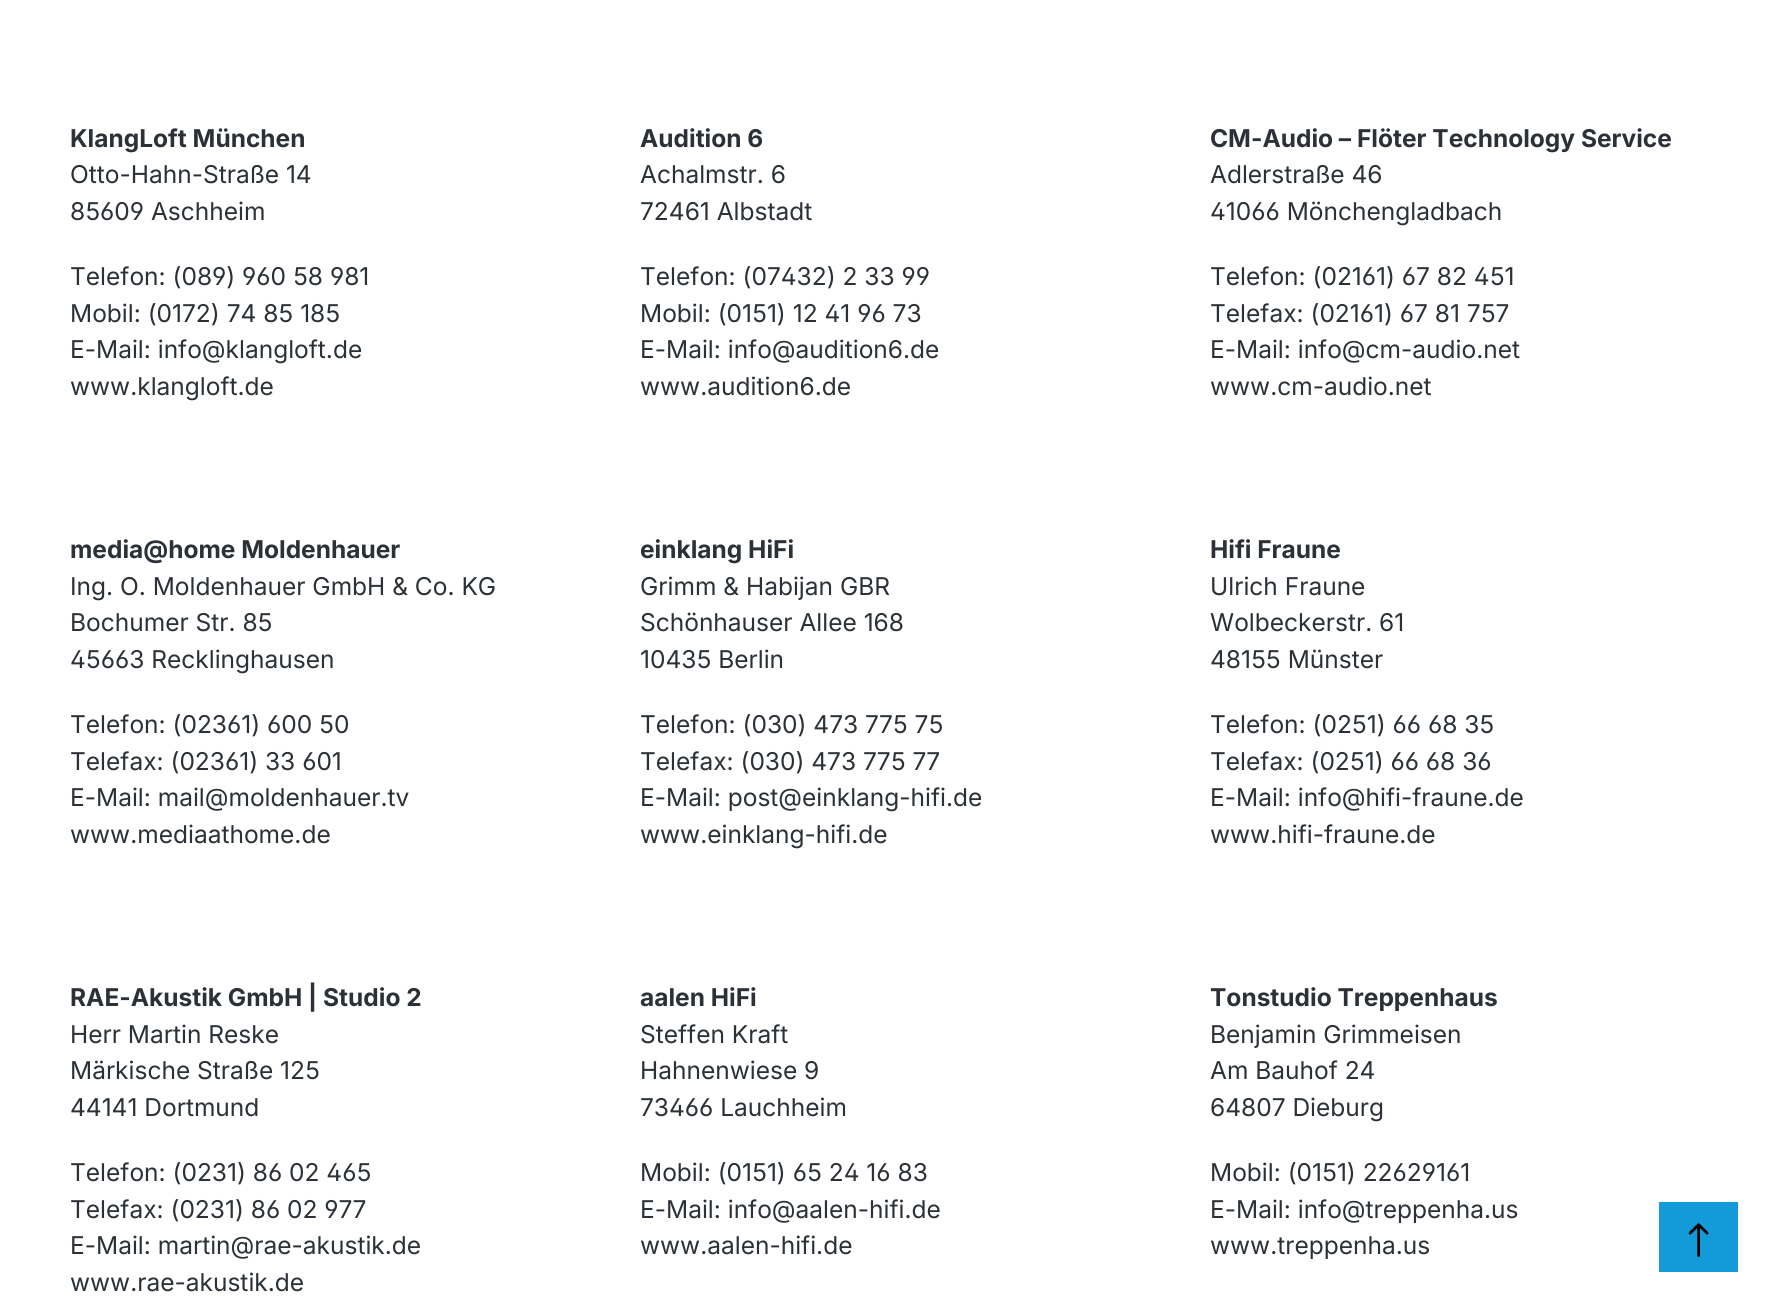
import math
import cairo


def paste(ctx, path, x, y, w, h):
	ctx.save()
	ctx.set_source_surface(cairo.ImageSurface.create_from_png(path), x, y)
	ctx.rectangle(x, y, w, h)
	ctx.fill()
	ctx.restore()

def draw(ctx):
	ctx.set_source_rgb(1, 1, 1)
	ctx.paint()
	ctx.select_font_face('Inter', cairo.FONT_SLANT_NORMAL, cairo.FONT_WEIGHT_BOLD)
	ctx.set_font_size(24.5)
	ctx.set_source_rgb(0.169, 0.192, 0.212)
	ctx.move_to(70, 147)
	ctx.show_text('KlangLoft München')
	ctx.select_font_face('Inter')
	ctx.move_to(70, 183)
	ctx.show_text('Otto-Hahn-Straße 14')
	ctx.select_font_face('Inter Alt')
	ctx.move_to(70, 220)
	ctx.show_text('85609 Aschheim')
	ctx.move_to(70, 285)
	ctx.show_text('Telefon: (089) 960 58 981')
	ctx.select_font_face('Inter')
	for x, y, s in [
		(70, 322, 'Mobil: (0172) 74 85 185'),
		(70, 358, 'E-Mail: info@klangloft.de'),
		(70, 395, 'www.klangloft.de'),
	]:
		ctx.move_to(x, y)
		ctx.show_text(s)
	ctx.select_font_face('Inter', cairo.FONT_SLANT_NORMAL, cairo.FONT_WEIGHT_BOLD)
	ctx.move_to(640, 147)
	ctx.show_text('Audition 6')
	ctx.select_font_face('Inter')
	ctx.move_to(640, 183)
	ctx.show_text('Achalmstr. 6')
	ctx.move_to(640, 220)
	ctx.show_text('72461 Albstadt')
	ctx.select_font_face('Inter Alt')
	ctx.move_to(640, 285)
	ctx.show_text('Telefon: (07432) 2 33 99')
	ctx.move_to(640, 322)
	ctx.show_text('Mobil: (0151) 12 41 96 73')
	ctx.select_font_face('Inter')
	ctx.move_to(640, 358)
	ctx.show_text('E-Mail: info@audition6.de')
	ctx.move_to(640, 395)
	ctx.show_text('www.audition6.de')
	ctx.select_font_face('Inter', cairo.FONT_SLANT_NORMAL, cairo.FONT_WEIGHT_BOLD)
	ctx.move_to(1210, 147)
	ctx.show_text('CM-Audio – Flöter Technology Service')
	ctx.select_font_face('Inter')
	ctx.move_to(1210, 183)
	ctx.show_text('Adlerstraße 46')
	ctx.select_font_face('Inter Alt')
	for x, y, s in [
		(1210, 220, '41066 Mönchengladbach'),
		(1210, 285, 'Telefon: (02161) 67 82 451'),
		(1210, 322, 'Telefax: (02161) 67 81 757'),
	]:
		ctx.move_to(x, y)
		ctx.show_text(s)
	ctx.select_font_face('Inter')
	ctx.move_to(1210, 358)
	ctx.show_text('E-Mail: info@cm-audio.net')
	ctx.move_to(1210, 395)
	ctx.show_text('www.cm-audio.net')
	ctx.select_font_face('Inter', cairo.FONT_SLANT_NORMAL, cairo.FONT_WEIGHT_BOLD)
	ctx.move_to(70, 558)
	ctx.show_text('media@home Moldenhauer')
	ctx.select_font_face('Inter')
	ctx.move_to(70, 595)
	ctx.show_text('Ing. O. Moldenhauer GmbH & Co. KG')
	ctx.move_to(70, 631)
	ctx.show_text('Bochumer Str. 85')
	ctx.select_font_face('Inter Alt')
	for x, y, s in [
		(70, 668, '45663 Recklinghausen'),
		(70, 733, 'Telefon: (02361) 600 50'),
		(70, 770, 'Telefax: (02361) 33 601'),
	]:
		ctx.move_to(x, y)
		ctx.show_text(s)
	ctx.select_font_face('Inter')
	ctx.move_to(70, 806)
	ctx.show_text('E-Mail: mail@moldenhauer.tv')
	ctx.move_to(70, 843)
	ctx.show_text('www.mediaathome.de')
	ctx.select_font_face('Inter', cairo.FONT_SLANT_NORMAL, cairo.FONT_WEIGHT_BOLD)
	ctx.move_to(640, 558)
	ctx.show_text('einklang HiFi')
	ctx.select_font_face('Inter')
	for x, y, s in [
		(640, 595, 'Grimm & Habijan GBR'),
		(640, 631, 'Schönhauser Allee 168'),
		(640, 668, '10435 Berlin'),
		(640, 733, 'Telefon: (030) 473 775 75'),
		(640, 770, 'Telefax: (030) 473 775 77'),
		(640, 806, 'E-Mail: post@einklang-hifi.de'),
		(640, 843, 'www.einklang-hifi.de'),
	]:
		ctx.move_to(x, y)
		ctx.show_text(s)
	ctx.select_font_face('Inter', cairo.FONT_SLANT_NORMAL, cairo.FONT_WEIGHT_BOLD)
	ctx.move_to(1210, 558)
	ctx.show_text('Hifi Fraune')
	ctx.select_font_face('Inter')
	for x, y, s in [
		(1210, 595, 'Ulrich Fraune'),
		(1210, 631, 'Wolbeckerstr. 61'),
		(1210, 668, '48155 Münster'),
	]:
		ctx.move_to(x, y)
		ctx.show_text(s)
	ctx.select_font_face('Inter Alt')
	ctx.move_to(1210, 733)
	ctx.show_text('Telefon: (0251) 66 68 35')
	ctx.move_to(1210, 770)
	ctx.show_text('Telefax: (0251) 66 68 36')
	ctx.select_font_face('Inter')
	ctx.move_to(1210, 806)
	ctx.show_text('E-Mail: info@hifi-fraune.de')
	ctx.move_to(1210, 843)
	ctx.show_text('www.hifi-fraune.de')
	ctx.select_font_face('Inter', cairo.FONT_SLANT_NORMAL, cairo.FONT_WEIGHT_BOLD)
	ctx.move_to(70, 1006)
	ctx.show_text('RAE-Akustik GmbH | Studio 2')
	ctx.select_font_face('Inter')
	for x, y, s in [
		(70, 1043, 'Herr Martin Reske'),
		(70, 1079, 'Märkische Straße 125'),
		(70, 1116, '44141 Dortmund'),
	]:
		ctx.move_to(x, y)
		ctx.show_text(s)
	ctx.select_font_face('Inter Alt')
	ctx.move_to(70, 1181)
	ctx.show_text('Telefon: (0231) 86 02 465')
	ctx.move_to(70, 1218)
	ctx.show_text('Telefax: (0231) 86 02 977')
	ctx.select_font_face('Inter')
	ctx.move_to(70, 1254)
	ctx.show_text('E-Mail: martin@rae-akustik.de')
	ctx.move_to(70, 1291)
	ctx.show_text('www.rae-akustik.de')
	ctx.select_font_face('Inter', cairo.FONT_SLANT_NORMAL, cairo.FONT_WEIGHT_BOLD)
	ctx.move_to(640, 1006)
	ctx.show_text('aalen HiFi')
	ctx.select_font_face('Inter')
	ctx.move_to(640, 1043)
	ctx.show_text('Steffen Kraft')
	ctx.move_to(640, 1079)
	ctx.show_text('Hahnenwiese 9')
	ctx.select_font_face('Inter Alt')
	ctx.move_to(640, 1116)
	ctx.show_text('73466 Lauchheim')
	ctx.move_to(640, 1181)
	ctx.show_text('Mobil: (0151) 65 24 16 83')
	ctx.select_font_face('Inter')
	ctx.move_to(640, 1218)
	ctx.show_text('E-Mail: info@aalen-hifi.de')
	ctx.move_to(640, 1254)
	ctx.show_text('www.aalen-hifi.de')
	ctx.select_font_face('Inter', cairo.FONT_SLANT_NORMAL, cairo.FONT_WEIGHT_BOLD)
	ctx.move_to(1210, 1006)
	ctx.show_text('Tonstudio Treppenhaus')
	ctx.select_font_face('Inter')
	for x, y, s in [
		(1210, 1043, 'Benjamin Grimmeisen'),
		(1210, 1079, 'Am Bauhof 24'),
		(1210, 1116, '64807 Dieburg'),
	]:
		ctx.move_to(x, y)
		ctx.show_text(s)
	ctx.select_font_face('Inter Alt')
	ctx.move_to(1210, 1181)
	ctx.show_text('Mobil: (0151) 22629161')
	ctx.select_font_face('Inter')
	ctx.move_to(1210, 1218)
	ctx.show_text('E-Mail: info@treppenha.us')
	ctx.move_to(1210, 1254)
	ctx.show_text('www.treppenha.us')
	ctx.set_source_rgb(0.071, 0.608, 0.847)
	ctx.rectangle(1659, 1202, 79, 70)
	ctx.fill()
	paste(ctx, 'media/1.png', 1688, 1223, 21, 34)


surface = cairo.ImageSurface(cairo.FORMAT_RGB24, 1779, 1314)
ctx = cairo.Context(surface)
options = cairo.FontOptions()
options.set_hint_metrics(cairo.HINT_METRICS_OFF)
options.set_hint_style(cairo.HINT_STYLE_NONE)
ctx.set_font_options(options)
ctx.set_miter_limit(4)
draw(ctx)
surface.write_to_png('image.png')
